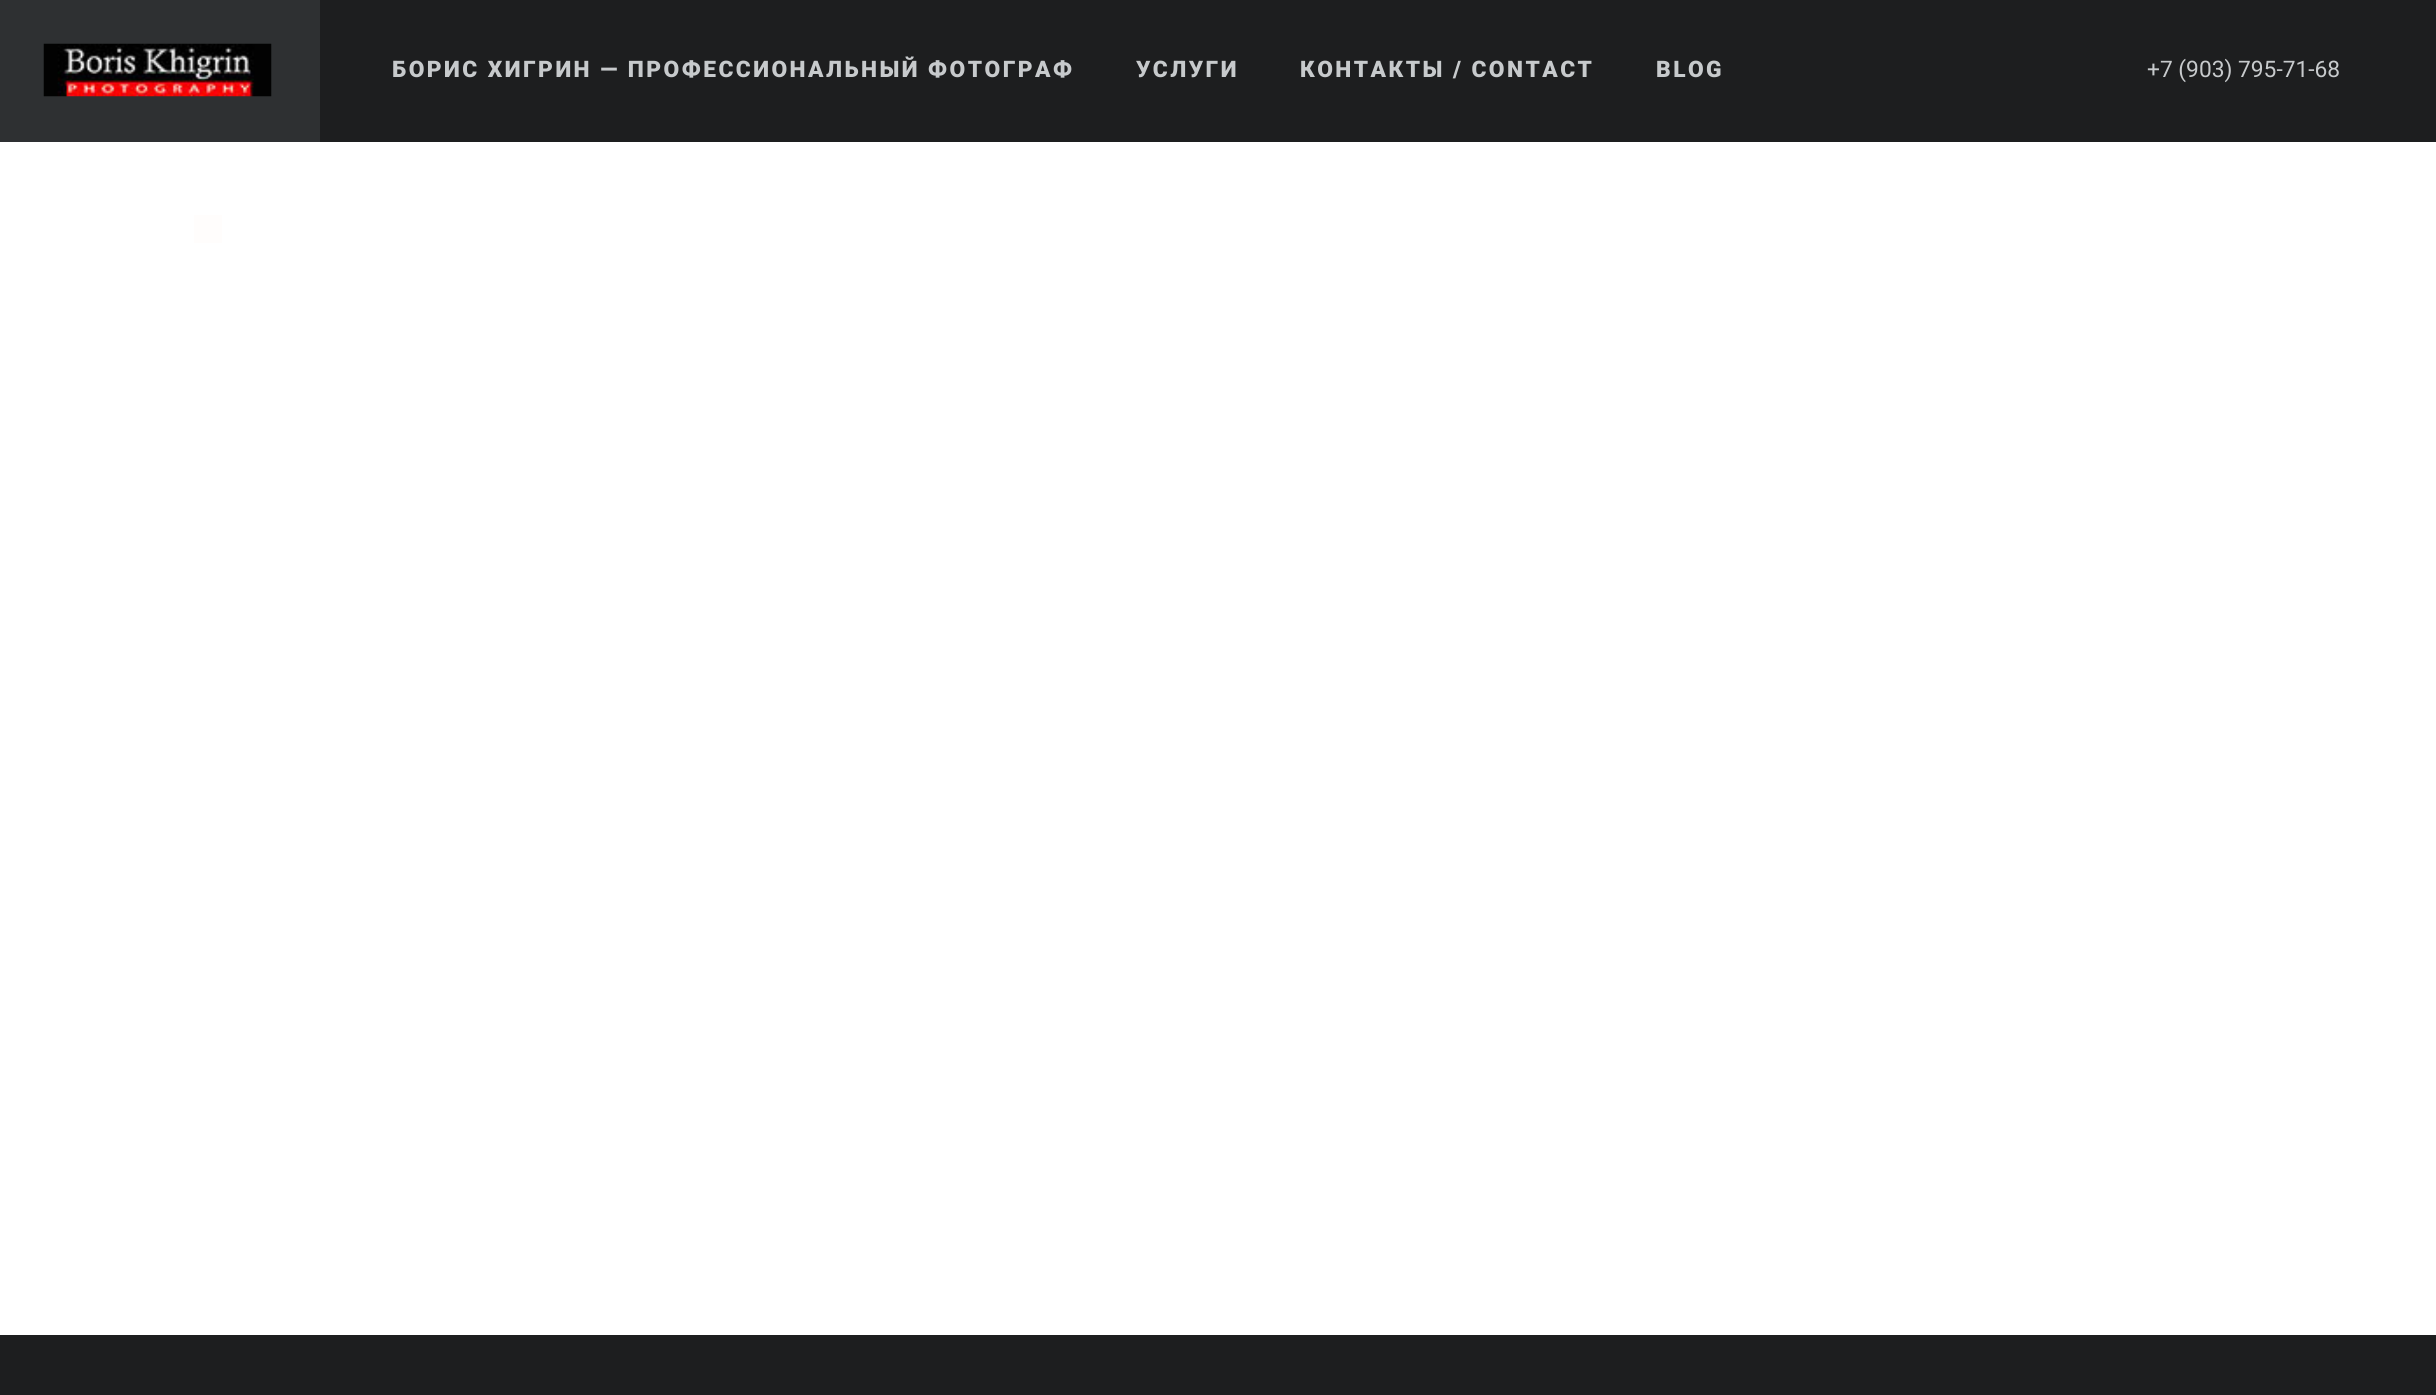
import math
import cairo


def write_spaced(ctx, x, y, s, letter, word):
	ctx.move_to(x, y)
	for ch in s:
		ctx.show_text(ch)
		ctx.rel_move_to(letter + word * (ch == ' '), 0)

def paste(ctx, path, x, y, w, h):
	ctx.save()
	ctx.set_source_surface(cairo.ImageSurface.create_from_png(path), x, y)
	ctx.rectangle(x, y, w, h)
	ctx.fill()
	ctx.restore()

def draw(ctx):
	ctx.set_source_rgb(1, 1, 1)
	ctx.paint()
	ctx.set_source_rgb(0.114, 0.118, 0.122)
	ctx.rectangle(320, 0, 2116, 142)
	ctx.fill()
	ctx.set_source_rgb(0.18, 0.188, 0.196)
	ctx.rectangle(0, 0, 320, 142)
	ctx.fill()
	paste(ctx, 'media/1.png', 43, 43, 229, 54)
	ctx.select_font_face('Roboto Black')
	ctx.set_font_size(22.75)
	ctx.set_source_rgb(0.78, 0.792, 0.8)
	for x, y, s in [
		(392, 77, 'БОРИС ХИГРИН — ПРОФЕССИОНАЛЬНЫЙ ФОТОГРАФ'),
		(1136, 77, 'УСЛУГИ'),
		(1300, 77, 'КОНТАКТЫ / CONTACT'),
		(1656, 77, 'BLOG'),
	]:
		write_spaced(ctx, x, y, s, 2.45, 0)
	ctx.select_font_face('Roboto')
	ctx.move_to(2147, 77)
	ctx.show_text('+7 (903) 795-71-68')
	ctx.set_source_rgb(1, 0.992, 0.988)
	ctx.rectangle(194, 215, 28, 28)
	ctx.fill()
	ctx.set_source_rgb(0.114, 0.118, 0.122)
	ctx.rectangle(0, 1335, 2436, 60)
	ctx.fill()


surface = cairo.ImageSurface(cairo.FORMAT_RGB24, 2436, 1395)
ctx = cairo.Context(surface)
options = cairo.FontOptions()
options.set_hint_metrics(cairo.HINT_METRICS_OFF)
options.set_hint_style(cairo.HINT_STYLE_NONE)
ctx.set_font_options(options)
ctx.set_miter_limit(4)
draw(ctx)
surface.write_to_png('image.png')
